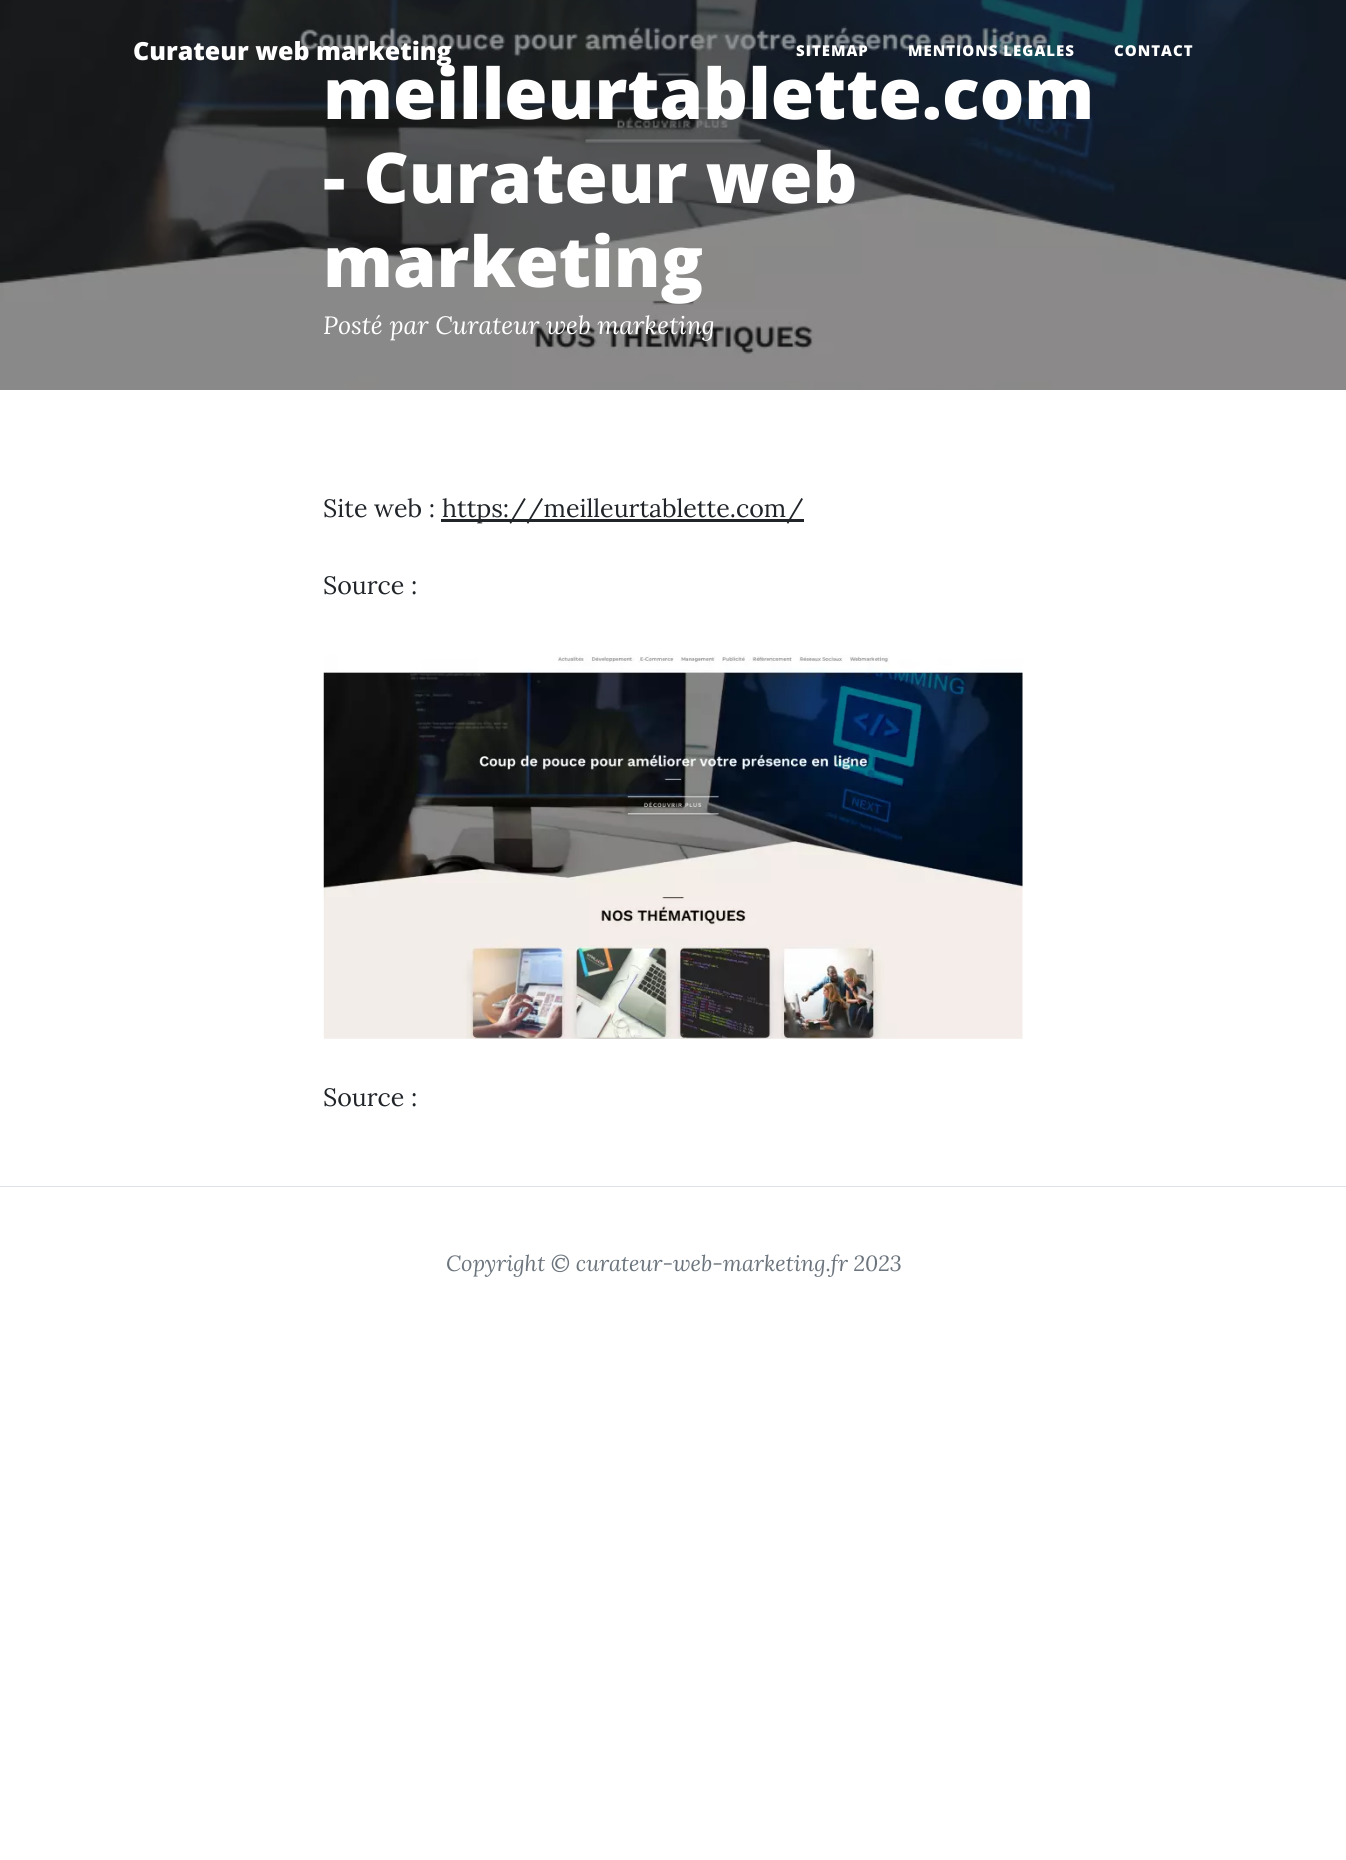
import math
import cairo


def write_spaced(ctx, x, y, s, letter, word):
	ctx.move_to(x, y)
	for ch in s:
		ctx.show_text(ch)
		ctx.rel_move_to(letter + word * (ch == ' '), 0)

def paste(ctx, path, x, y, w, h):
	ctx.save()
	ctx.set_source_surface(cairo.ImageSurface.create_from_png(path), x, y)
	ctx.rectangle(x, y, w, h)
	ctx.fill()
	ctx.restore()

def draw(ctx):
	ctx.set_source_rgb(1, 1, 1)
	ctx.paint()
	paste(ctx, 'media/1.png', 0, 0, 1346, 390)
	ctx.select_font_face('Open Sans ExtraBold')
	ctx.set_font_size(25)
	ctx.set_source_rgb(1, 1, 1)
	ctx.move_to(133, 60)
	ctx.show_text('Curateur web marketing')
	ctx.set_font_size(15)
	for x, y, s in [
		(796, 56, 'SITEMAP'),
		(908, 56, 'MENTIONS LEGALES'),
		(1114, 56, 'CONTACT'),
	]:
		write_spaced(ctx, x, y, s, 1, 0)
	ctx.set_font_size(70)
	for x, y, s in [
		(323, 119, 'meilleurtablette.com'),
		(323, 203, '- Curateur web'),
		(323, 287, 'marketing'),
	]:
		ctx.move_to(x, y)
		ctx.show_text(s)
	ctx.select_font_face('Lora', cairo.FONT_SLANT_ITALIC)
	ctx.set_font_size(25)
	ctx.move_to(323, 334)
	ctx.show_text('Posté par Curateur web marketing')
	ctx.select_font_face('Lora')
	ctx.set_source_rgb(0.129, 0.145, 0.161)
	ctx.move_to(323, 517)
	ctx.show_text('Site web :')
	ctx.rectangle(441, 519, 363, 3)
	ctx.fill()
	ctx.move_to(442, 517)
	ctx.show_text('https://meilleurtablette.com/')
	ctx.move_to(323, 594)
	ctx.show_text('Source :')
	paste(ctx, 'media/2.png', 323, 655, 700, 384)
	ctx.move_to(323, 1106)
	ctx.show_text('Source :')
	ctx.set_source_rgb(0.871, 0.886, 0.902)
	ctx.rectangle(0, 1186, 1346, 1)
	ctx.fill()
	ctx.select_font_face('Lora', cairo.FONT_SLANT_ITALIC)
	ctx.set_font_size(21.9)
	ctx.set_source_rgb(0.424, 0.459, 0.49)
	ctx.move_to(446, 1271)
	ctx.show_text('Copyright © curateur-web-marketing.fr 2023')


surface = cairo.ImageSurface(cairo.FORMAT_RGB24, 1346, 1860)
ctx = cairo.Context(surface)
options = cairo.FontOptions()
options.set_hint_metrics(cairo.HINT_METRICS_OFF)
options.set_hint_style(cairo.HINT_STYLE_NONE)
ctx.set_font_options(options)
ctx.set_miter_limit(4)
draw(ctx)
surface.write_to_png('image.png')
